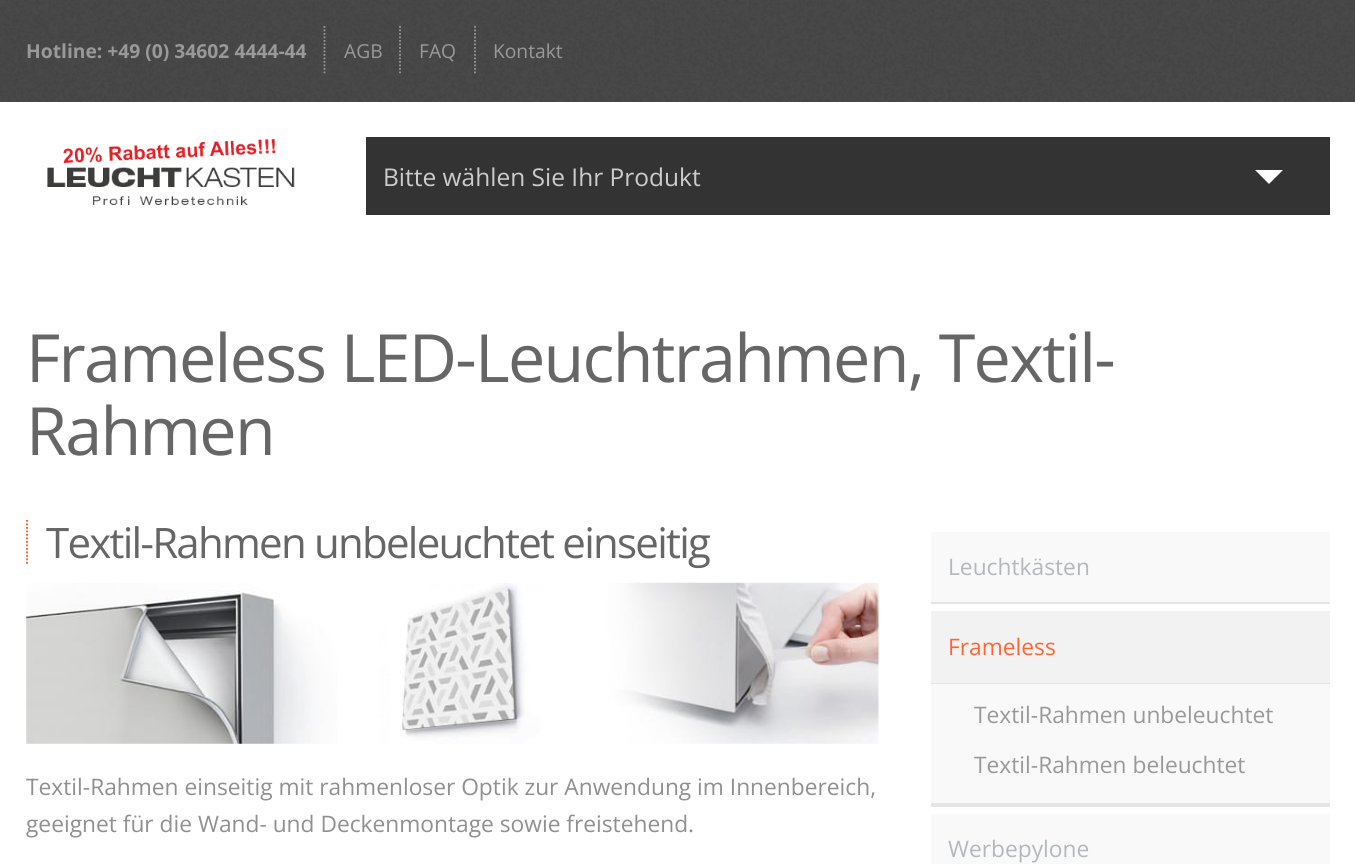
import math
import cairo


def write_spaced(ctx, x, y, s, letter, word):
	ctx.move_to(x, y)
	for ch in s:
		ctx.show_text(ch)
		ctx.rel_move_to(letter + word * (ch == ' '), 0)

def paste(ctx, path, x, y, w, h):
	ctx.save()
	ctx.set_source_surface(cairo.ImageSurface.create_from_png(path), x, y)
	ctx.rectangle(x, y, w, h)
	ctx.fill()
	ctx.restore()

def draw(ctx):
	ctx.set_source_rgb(0.267, 0.267, 0.267)
	ctx.paint()
	paste(ctx, 'media/1.png', 0, 0, 1355, 102)
	ctx.new_path()
	ctx.move_to(324.5, 26)
	ctx.line_to(324.5, 75)
	ctx.set_source_rgb(0.6, 0.6, 0.6)
	ctx.set_line_width(1.8)
	ctx.set_dash([1.75, 1.75])
	ctx.stroke()
	ctx.select_font_face('Open Sans', cairo.FONT_SLANT_NORMAL, cairo.FONT_WEIGHT_BOLD)
	ctx.set_font_size(19.25)
	ctx.move_to(26, 58)
	ctx.show_text('Hotline: +49 (0) 34602 4444-44')
	ctx.new_path()
	ctx.move_to(400, 26)
	ctx.line_to(400, 75)
	ctx.stroke()
	ctx.select_font_face('Open Sans')
	ctx.move_to(344, 58)
	ctx.show_text('AGB')
	ctx.new_path()
	ctx.move_to(475, 26)
	ctx.line_to(475, 75)
	ctx.stroke()
	ctx.move_to(419, 58)
	ctx.show_text('FAQ')
	ctx.move_to(493, 58)
	ctx.show_text('Kontakt')
	ctx.set_source_rgb(1, 1, 1)
	ctx.rectangle(0, 102, 1355, 762)
	ctx.fill()
	paste(ctx, 'media/2.png', 47, 138, 248, 67)
	ctx.set_source_rgb(0.2, 0.2, 0.2)
	ctx.rectangle(366, 137, 964, 78)
	ctx.fill()
	ctx.set_font_size(24.5)
	ctx.set_source_rgb(0.8, 0.8, 0.8)
	ctx.move_to(383, 186)
	ctx.show_text('Bitte wählen Sie Ihr Produkt')
	ctx.set_source_rgb(1, 1, 1)
	ctx.new_path()
	ctx.move_to(1255, 170)
	ctx.line_to(1283, 170)
	ctx.line_to(1269, 184)
	ctx.close_path()
	ctx.fill()
	ctx.set_font_size(66.5)
	ctx.set_source_rgb(0.4, 0.4, 0.4)
	write_spaced(ctx, 26, 382, 'Frameless LED-Leuchtrahmen, Textil-', -1.75, 0)
	write_spaced(ctx, 26, 455, 'Rahmen', -1.75, 0)
	ctx.new_path()
	ctx.move_to(27, 520)
	ctx.line_to(27, 565)
	ctx.set_source_rgb(1, 0.325, 0)
	ctx.stroke()
	ctx.set_font_size(42)
	ctx.set_source_rgb(0.4, 0.4, 0.4)
	write_spaced(ctx, 46, 558, 'Textil-Rahmen unbeleuchtet einseitig', -1.75, 0)
	paste(ctx, 'media/3.png', 26, 582, 853, 162)
	ctx.set_font_size(22.75)
	ctx.set_source_rgb(0.565, 0.565, 0.565)
	ctx.move_to(26, 795)
	ctx.show_text('Textil-Rahmen einseitig mit rahmenloser Optik zur Anwendung im Innenbereich,')
	ctx.move_to(26, 832)
	ctx.show_text('geeignet für die Wand- und Deckenmontage sowie freistehend.')
	ctx.set_source_rgb(0.973, 0.973, 0.973)
	ctx.rectangle(931, 532, 399, 70)
	ctx.fill()
	ctx.set_source_rgb(0.898, 0.898, 0.898)
	ctx.rectangle(931, 602, 399, 2)
	ctx.fill()
	ctx.set_source_rgb(0.706, 0.722, 0.737)
	ctx.move_to(948, 575)
	ctx.show_text('Leuchtkästen')
	ctx.set_source_rgb(0.949, 0.949, 0.949)
	ctx.rectangle(931, 611, 399, 72)
	ctx.fill()
	ctx.set_source_rgb(0.898, 0.898, 0.898)
	ctx.rectangle(931, 683, 399, 1)
	ctx.fill()
	ctx.set_source_rgb(1, 0.4, 0.2)
	ctx.move_to(948, 655)
	ctx.show_text('Frameless')
	ctx.set_source_rgb(0.973, 0.973, 0.973)
	ctx.rectangle(931, 684, 399, 119)
	ctx.fill()
	ctx.set_source_rgb(0.898, 0.898, 0.898)
	ctx.rectangle(931, 803, 399, 4)
	ctx.fill()
	ctx.set_source_rgb(0.6, 0.6, 0.6)
	ctx.move_to(974, 723)
	ctx.show_text('Textil-Rahmen unbeleuchtet')
	ctx.move_to(974, 773)
	ctx.show_text('Textil-Rahmen beleuchtet')
	ctx.set_source_rgb(0.973, 0.973, 0.973)
	ctx.rectangle(931, 814, 399, 50)
	ctx.fill()
	ctx.set_source_rgb(0.706, 0.722, 0.737)
	ctx.move_to(948, 857)
	ctx.show_text('Werbepylone')


surface = cairo.ImageSurface(cairo.FORMAT_RGB24, 1355, 864)
ctx = cairo.Context(surface)
options = cairo.FontOptions()
options.set_hint_metrics(cairo.HINT_METRICS_OFF)
options.set_hint_style(cairo.HINT_STYLE_NONE)
ctx.set_font_options(options)
ctx.set_miter_limit(4)
draw(ctx)
surface.write_to_png('image.png')
